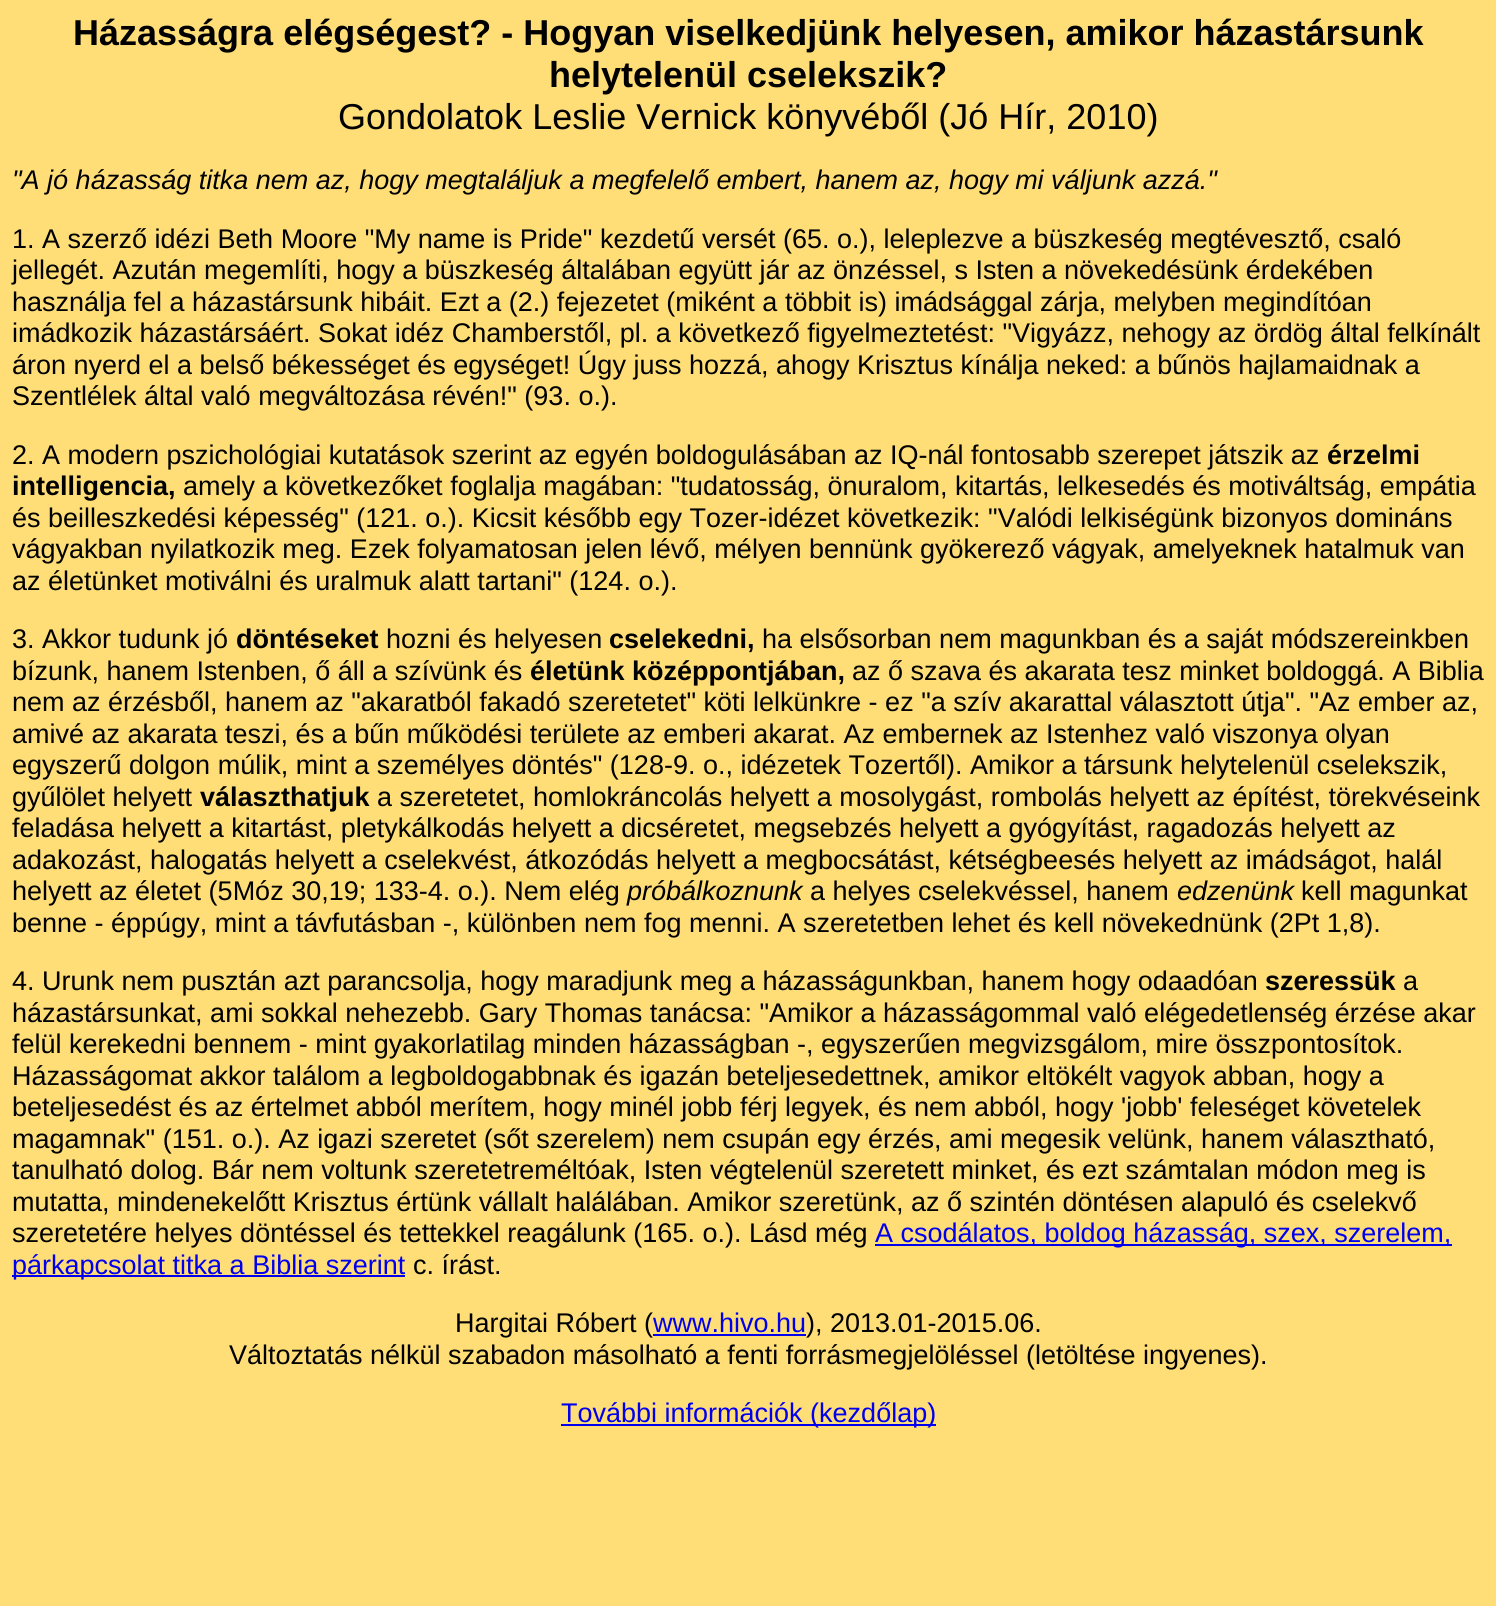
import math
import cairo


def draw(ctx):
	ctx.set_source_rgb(1, 0.867, 0.467)
	ctx.paint()
	ctx.select_font_face('Liberation Sans', cairo.FONT_SLANT_NORMAL, cairo.FONT_WEIGHT_BOLD)
	ctx.set_font_size(36)
	ctx.set_source_rgb(0, 0, 0)
	ctx.move_to(73, 45)
	ctx.show_text('Házasságra elégségest? - Hogyan viselkedjünk helyesen, amikor házastársunk')
	ctx.move_to(549, 87)
	ctx.show_text('helytelenül cselekszik?')
	ctx.select_font_face('Liberation Sans')
	ctx.move_to(338, 129)
	ctx.show_text('Gondolatok Leslie Vernick könyvéből (Jó Hír, 2010)')
	ctx.select_font_face('Liberation Sans', cairo.FONT_SLANT_ITALIC)
	ctx.set_font_size(27)
	ctx.move_to(12, 189)
	ctx.show_text('"A jó házasság titka nem az, hogy megtaláljuk a megfelelő embert, hanem az, hogy mi váljunk azzá."')
	ctx.select_font_face('Liberation Sans')
	for x, y, s in [
		(12, 248, '1. A szerző idézi Beth Moore "My name is Pride" kezdetű versét (65. o.), leleplezve a büszkeség megtévesztő, csaló'),
		(12, 279, 'jellegét. Azután megemlíti, hogy a büszkeség általában együtt jár az önzéssel, s Isten a növekedésünk érdekében'),
		(12, 311, 'használja fel a házastársunk hibáit. Ezt a (2.) fejezetet (miként a többit is) imádsággal zárja, melyben megindítóan'),
		(12, 342, 'imádkozik házastársáért. Sokat idéz Chamberstől, pl. a következő figyelmeztetést: "Vigyázz, nehogy az ördög által felkínált'),
		(12, 374, 'áron nyerd el a belső békességet és egységet! Úgy juss hozzá, ahogy Krisztus kínálja neked: a bűnös hajlamaidnak a'),
		(12, 405, 'Szentlélek által való megváltozása révén!" (93. o.).'),
		(12, 464, '2. A modern pszichológiai kutatások szerint az egyén boldogulásában az IQ-nál fontosabb szerepet játszik az'),
	]:
		ctx.move_to(x, y)
		ctx.show_text(s)
	ctx.select_font_face('Liberation Sans', cairo.FONT_SLANT_NORMAL, cairo.FONT_WEIGHT_BOLD)
	ctx.move_to(1327, 464)
	ctx.show_text('érzelmi')
	ctx.move_to(12, 495)
	ctx.show_text('intelligencia,')
	ctx.select_font_face('Liberation Sans')
	for x, y, s in [
		(183, 495, 'amely a következőket foglalja magában: "tudatosság, önuralom, kitartás, lelkesedés és motiváltság, empátia'),
		(12, 527, 'és beilleszkedési képesség" (121. o.). Kicsit később egy Tozer-idézet következik: "Valódi lelkiségünk bizonyos domináns'),
		(12, 558, 'vágyakban nyilatkozik meg. Ezek folyamatosan jelen lévő, mélyen bennünk gyökerező vágyak, amelyeknek hatalmuk van'),
		(12, 590, 'az életünket motiválni és uralmuk alatt tartani" (124. o.).'),
		(12, 648, '3. Akkor tudunk jó'),
	]:
		ctx.move_to(x, y)
		ctx.show_text(s)
	ctx.select_font_face('Liberation Sans', cairo.FONT_SLANT_NORMAL, cairo.FONT_WEIGHT_BOLD)
	ctx.move_to(236, 648)
	ctx.show_text('döntéseket')
	ctx.select_font_face('Liberation Sans')
	ctx.move_to(386, 648)
	ctx.show_text('hozni és helyesen')
	ctx.select_font_face('Liberation Sans', cairo.FONT_SLANT_NORMAL, cairo.FONT_WEIGHT_BOLD)
	ctx.move_to(609, 648)
	ctx.show_text('cselekedni,')
	ctx.select_font_face('Liberation Sans')
	ctx.move_to(762, 648)
	ctx.show_text('ha elsősorban nem magunkban és a saját módszereinkben')
	ctx.move_to(12, 680)
	ctx.show_text('bízunk, hanem Istenben, ő áll a szívünk és')
	ctx.select_font_face('Liberation Sans', cairo.FONT_SLANT_NORMAL, cairo.FONT_WEIGHT_BOLD)
	ctx.move_to(530, 680)
	ctx.show_text('életünk középpontjában,')
	ctx.select_font_face('Liberation Sans')
	for x, y, s in [
		(852, 680, 'az ő szava és akarata tesz minket boldoggá. A Biblia'),
		(12, 711, 'nem az érzésből, hanem az "akaratból fakadó szeretetet" köti lelkünkre - ez "a szív akarattal választott útja". "Az ember az,'),
		(12, 743, 'amivé az akarata teszi, és a bűn működési területe az emberi akarat. Az embernek az Istenhez való viszonya olyan'),
		(12, 774, 'egyszerű dolgon múlik, mint a személyes döntés" (128-9. o., idézetek Tozertől). Amikor a társunk helytelenül cselekszik,'),
		(12, 806, 'gyűlölet helyett'),
	]:
		ctx.move_to(x, y)
		ctx.show_text(s)
	ctx.select_font_face('Liberation Sans', cairo.FONT_SLANT_NORMAL, cairo.FONT_WEIGHT_BOLD)
	ctx.move_to(200, 806)
	ctx.show_text('választhatjuk')
	ctx.select_font_face('Liberation Sans')
	for x, y, s in [
		(377, 806, 'a szeretetet, homlokráncolás helyett a mosolygást, rombolás helyett az építést, törekvéseink'),
		(12, 837, 'feladása helyett a kitartást, pletykálkodás helyett a dicséretet, megsebzés helyett a gyógyítást, ragadozás helyett az'),
		(12, 869, 'adakozást, halogatás helyett a cselekvést, átkozódás helyett a megbocsátást, kétségbeesés helyett az imádságot, halál'),
		(12, 900, 'helyett az életet (5Móz 30,19; 133-4. o.). Nem elég'),
	]:
		ctx.move_to(x, y)
		ctx.show_text(s)
	ctx.select_font_face('Liberation Sans', cairo.FONT_SLANT_ITALIC)
	ctx.move_to(627, 900)
	ctx.show_text('próbálkoznunk')
	ctx.select_font_face('Liberation Sans')
	ctx.move_to(810, 900)
	ctx.show_text('a helyes cselekvéssel, hanem')
	ctx.select_font_face('Liberation Sans', cairo.FONT_SLANT_ITALIC)
	ctx.move_to(1177, 900)
	ctx.show_text('edzenünk')
	ctx.select_font_face('Liberation Sans')
	for x, y, s in [
		(1301, 900, 'kell magunkat'),
		(12, 932, 'benne - éppúgy, mint a távfutásban -, különben nem fog menni. A szeretetben lehet és kell növekednünk (2Pt 1,8).'),
		(12, 990, '4. Urunk nem pusztán azt parancsolja, hogy maradjunk meg a házasságunkban, hanem hogy odaadóan'),
	]:
		ctx.move_to(x, y)
		ctx.show_text(s)
	ctx.select_font_face('Liberation Sans', cairo.FONT_SLANT_NORMAL, cairo.FONT_WEIGHT_BOLD)
	ctx.move_to(1265, 990)
	ctx.show_text('szeressük')
	ctx.select_font_face('Liberation Sans')
	for x, y, s in [
		(1403, 990, 'a'),
		(12, 1022, 'házastársunkat, ami sokkal nehezebb. Gary Thomas tanácsa: "Amikor a házasságommal való elégedetlenség érzése akar'),
		(12, 1053, 'felül kerekedni bennem - mint gyakorlatilag minden házasságban -, egyszerűen megvizsgálom, mire összpontosítok.'),
		(12, 1085, 'Házasságomat akkor találom a legboldogabbnak és igazán beteljesedettnek, amikor eltökélt vagyok abban, hogy a'),
		(12, 1116, 'beteljesedést és az értelmet abból merítem, hogy minél jobb férj legyek, és nem abból, hogy \'jobb\' feleséget követelek'),
		(12, 1148, 'magamnak" (151. o.). Az igazi szeretet (sőt szerelem) nem csupán egy érzés, ami megesik velünk, hanem választható,'),
		(12, 1179, 'tanulható dolog. Bár nem voltunk szeretetreméltóak, Isten végtelenül szeretett minket, és ezt számtalan módon meg is'),
		(12, 1211, 'mutatta, mindenekelőtt Krisztus értünk vállalt halálában. Amikor szeretünk, az ő szintén döntésen alapuló és cselekvő'),
		(12, 1242, 'szeretetére helyes döntéssel és tettekkel reagálunk (165. o.). Lásd még'),
	]:
		ctx.move_to(x, y)
		ctx.show_text(s)
	ctx.set_source_rgb(0, 0, 0.933)
	ctx.rectangle(875, 1244, 577, 2)
	ctx.fill()
	ctx.move_to(875, 1242)
	ctx.show_text('A csodálatos, boldog házasság, szex, szerelem,')
	ctx.rectangle(12, 1275, 393, 2)
	ctx.fill()
	ctx.move_to(12, 1274)
	ctx.show_text('párkapcsolat titka a Biblia szerint')
	ctx.set_source_rgb(0, 0, 0)
	ctx.move_to(413, 1274)
	ctx.show_text('c. írást.')
	ctx.move_to(455, 1332)
	ctx.show_text('Hargitai Róbert (')
	ctx.set_source_rgb(0, 0, 0.933)
	ctx.move_to(653, 1332)
	ctx.show_text('www.hivo.hu')
	ctx.rectangle(653, 1334, 153, 2)
	ctx.fill()
	ctx.set_source_rgb(0, 0, 0)
	ctx.move_to(806, 1332)
	ctx.show_text('), 2013.01-2015.06.')
	ctx.move_to(229, 1364)
	ctx.show_text('Változtatás nélkül szabadon másolható a fenti forrásmegjelöléssel (letöltése ingyenes).')
	ctx.set_source_rgb(0, 0, 0.933)
	ctx.rectangle(561, 1424, 375, 2)
	ctx.fill()
	ctx.move_to(561, 1422)
	ctx.show_text('További információk (kezdőlap)')


surface = cairo.ImageSurface(cairo.FORMAT_RGB24, 1496, 1606)
ctx = cairo.Context(surface)
options = cairo.FontOptions()
options.set_hint_metrics(cairo.HINT_METRICS_OFF)
options.set_hint_style(cairo.HINT_STYLE_NONE)
ctx.set_font_options(options)
ctx.set_miter_limit(4)
draw(ctx)
surface.write_to_png('image.png')
